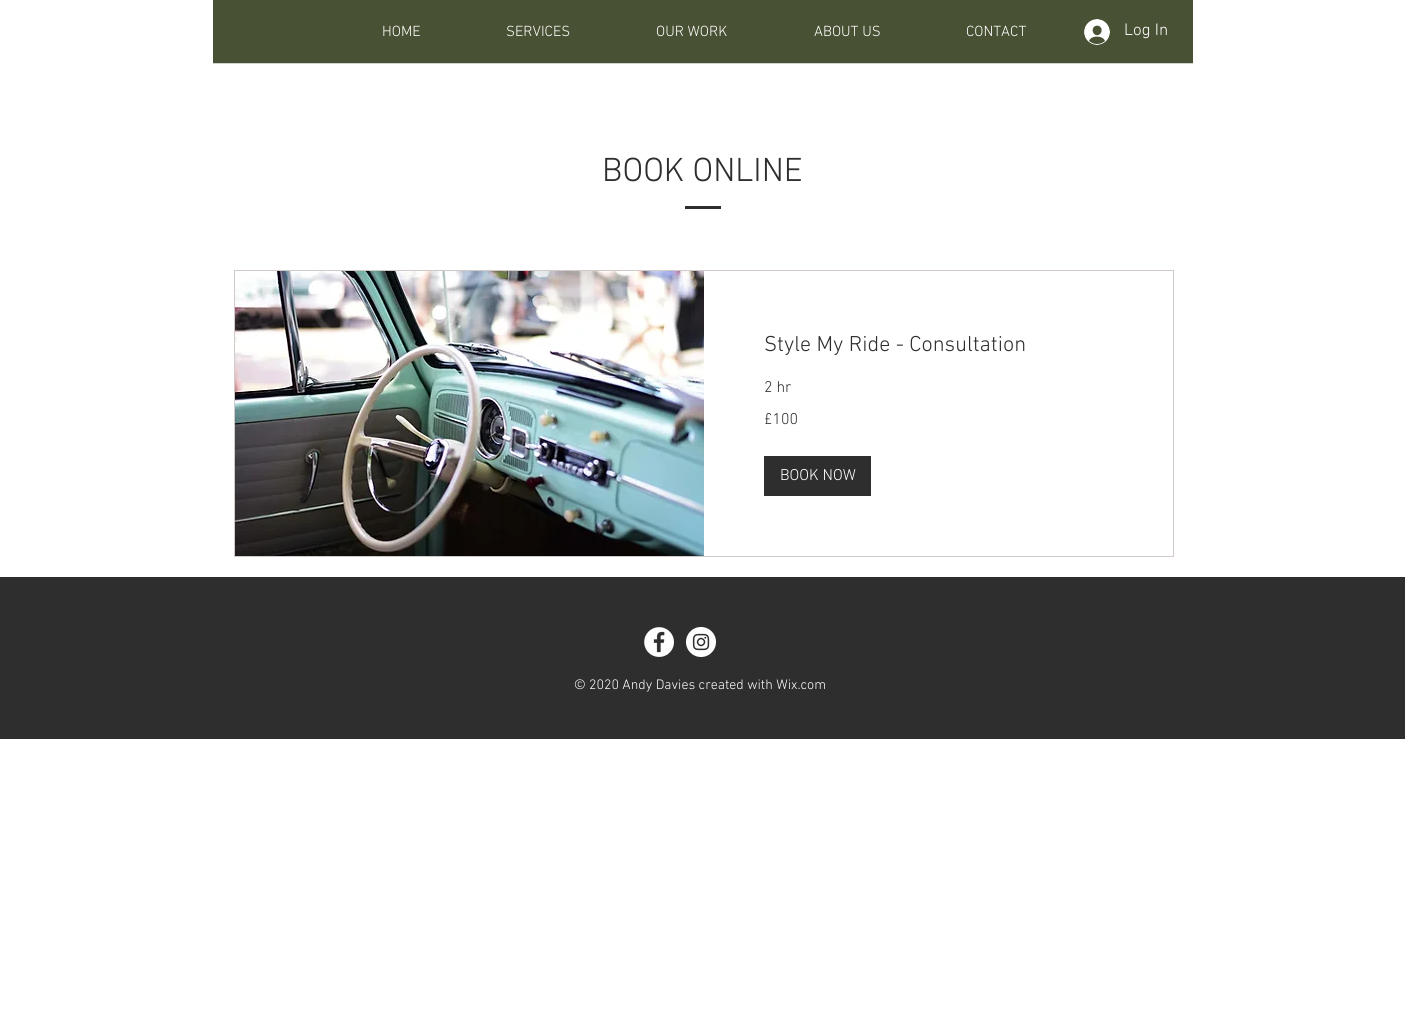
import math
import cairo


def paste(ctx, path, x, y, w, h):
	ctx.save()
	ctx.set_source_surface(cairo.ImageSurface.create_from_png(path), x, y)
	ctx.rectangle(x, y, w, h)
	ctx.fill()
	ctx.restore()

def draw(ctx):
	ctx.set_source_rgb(1, 1, 1)
	ctx.paint()
	ctx.set_source_rgb(0.282, 0.318, 0.2)
	ctx.rectangle(213, 0, 980, 63)
	ctx.fill()
	ctx.set_source_rgb(0.82, 0.831, 0.8)
	ctx.rectangle(213, 63, 980, 1)
	ctx.fill()
	ctx.select_font_face('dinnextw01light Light')
	ctx.set_font_size(15)
	ctx.set_source_rgb(1, 1, 1)
	for x, y, s in [
		(382, 36, 'HOME'),
		(506, 36, 'SERVICES'),
		(656, 36, 'OUR WORK'),
		(814, 36, 'ABOUT US'),
		(966, 36, 'CONTACT'),
	]:
		ctx.move_to(x, y)
		ctx.show_text(s)
	paste(ctx, 'media/1.png', 1084, 19, 26, 26)
	ctx.set_font_size(17)
	ctx.move_to(1124, 35)
	ctx.show_text('Log In')
	ctx.set_font_size(34)
	ctx.set_source_rgb(0.184, 0.18, 0.18)
	ctx.move_to(602, 181)
	ctx.show_text('BOOK ONLINE')
	ctx.rectangle(685, 206, 36, 3)
	ctx.fill()
	ctx.rectangle(234.5, 270.5, 939, 286)
	ctx.set_source_rgb(0.82, 0.792, 0.788)
	ctx.set_line_width(1)
	ctx.stroke()
	paste(ctx, 'media/2.png', 235, 271, 469, 285)
	ctx.set_font_size(22)
	ctx.set_source_rgb(0.184, 0.18, 0.18)
	ctx.move_to(764, 351)
	ctx.show_text('Style My Ride - Consultation')
	ctx.set_font_size(16)
	ctx.move_to(764, 392)
	ctx.show_text('2 hr')
	ctx.move_to(764, 424)
	ctx.show_text('£100')
	ctx.rectangle(764, 456, 107, 40)
	ctx.fill()
	ctx.set_source_rgb(1, 1, 1)
	ctx.move_to(780, 480)
	ctx.show_text('BOOK NOW')
	ctx.set_source_rgb(0.184, 0.18, 0.18)
	ctx.rectangle(0, 577, 1405, 162)
	ctx.fill()
	paste(ctx, 'media/3.png', 644, 627, 30, 30)
	paste(ctx, 'media/4.png', 686, 627, 30, 30)
	ctx.set_font_size(14)
	ctx.set_source_rgb(1, 1, 1)
	ctx.move_to(574, 689)
	ctx.show_text('© 2020 Andy Davies created with Wix.com')


surface = cairo.ImageSurface(cairo.FORMAT_RGB24, 1405, 1031)
ctx = cairo.Context(surface)
options = cairo.FontOptions()
options.set_hint_metrics(cairo.HINT_METRICS_OFF)
options.set_hint_style(cairo.HINT_STYLE_NONE)
ctx.set_font_options(options)
ctx.set_miter_limit(4)
draw(ctx)
surface.write_to_png('image.png')
